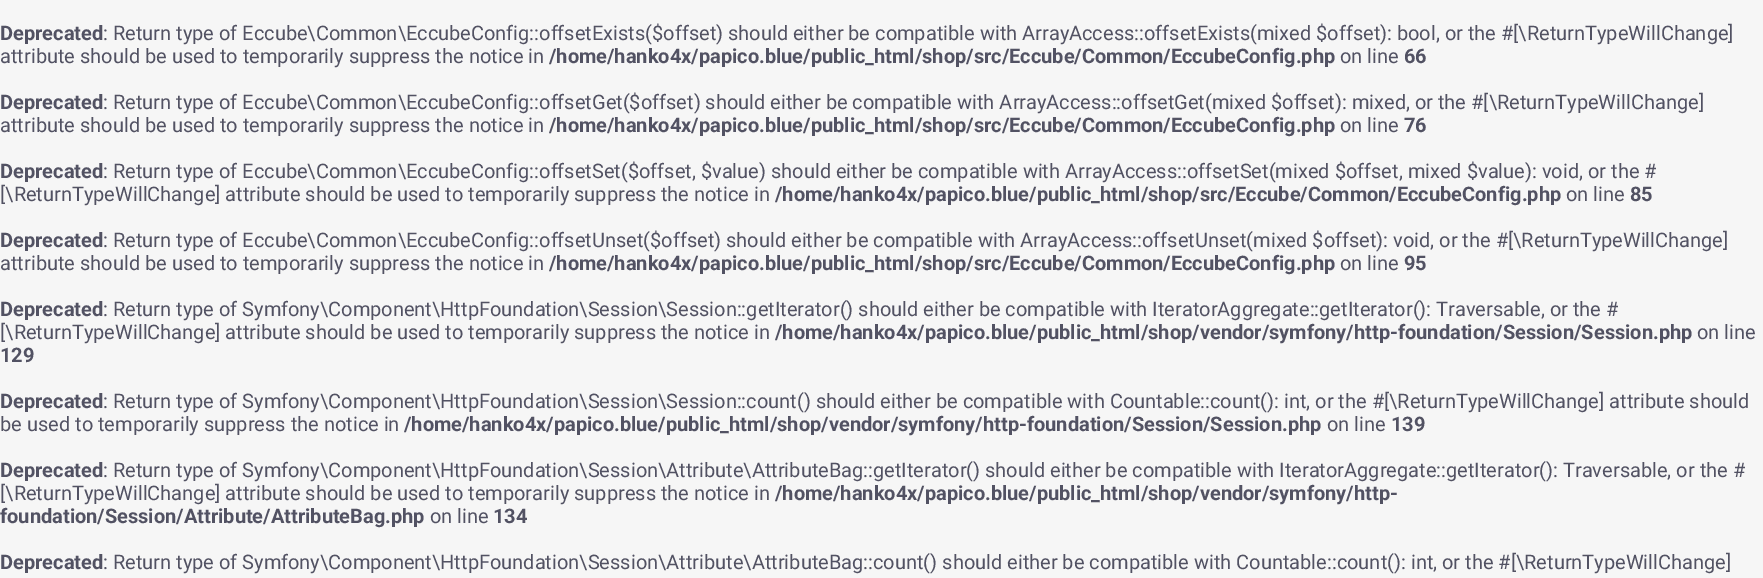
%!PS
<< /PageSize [1763 578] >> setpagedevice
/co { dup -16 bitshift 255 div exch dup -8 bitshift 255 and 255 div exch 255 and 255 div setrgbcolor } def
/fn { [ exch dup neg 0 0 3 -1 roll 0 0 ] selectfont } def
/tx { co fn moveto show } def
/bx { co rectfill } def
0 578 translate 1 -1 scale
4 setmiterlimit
0 0 1763 578 16#F6F6F6 bx
(Deprecated) 0 40 /Roboto-Bold 20 16#525263 tx
(: Return type of Eccube\\Common\\EccubeConfig::offsetExists\($offset\) should either be compatible with ArrayAccess::offsetExists\(mixed $offset\): bool, or the #[\\ReturnTypeWillChange]) 103 40 /Roboto-Regular 20 16#525263 tx
(attribute should be used to temporarily suppress the notice in) 0 63 /Roboto-Regular 20 16#525263 tx
(/home/hanko4x/papico.blue/public_html/shop/src/Eccube/Common/EccubeConfig.php) 549 63 /Roboto-Bold 20 16#525263 tx
(on line) 1340 63 /Roboto-Regular 20 16#525263 tx
(66) 1404 63 /Roboto-Bold 20 16#525263 tx
(Deprecated) 0 109 /Roboto-Bold 20 16#525263 tx
(: Return type of Eccube\\Common\\EccubeConfig::offsetGet\($offset\) should either be compatible with ArrayAccess::offsetGet\(mixed $offset\): mixed, or the #[\\ReturnTypeWillChange]) 103 109 /Roboto-Regular 20 16#525263 tx
(attribute should be used to temporarily suppress the notice in) 0 132 /Roboto-Regular 20 16#525263 tx
(/home/hanko4x/papico.blue/public_html/shop/src/Eccube/Common/EccubeConfig.php) 549 132 /Roboto-Bold 20 16#525263 tx
(on line) 1340 132 /Roboto-Regular 20 16#525263 tx
(76) 1404 132 /Roboto-Bold 20 16#525263 tx
(Deprecated) 0 178 /Roboto-Bold 20 16#525263 tx
(: Return type of Eccube\\Common\\EccubeConfig::offsetSet\($offset, $value\) should either be compatible with ArrayAccess::offsetSet\(mixed $offset, mixed $value\): void, or the #) 103 178 /Roboto-Regular 20 16#525263 tx
([\\ReturnTypeWillChange] attribute should be used to temporarily suppress the notice in) 0 201 /Roboto-Regular 20 16#525263 tx
(/home/hanko4x/papico.blue/public_html/shop/src/Eccube/Common/EccubeConfig.php) 775 201 /Roboto-Bold 20 16#525263 tx
(on line) 1566 201 /Roboto-Regular 20 16#525263 tx
(85) 1630 201 /Roboto-Bold 20 16#525263 tx
(Deprecated) 0 247 /Roboto-Bold 20 16#525263 tx
(: Return type of Eccube\\Common\\EccubeConfig::offsetUnset\($offset\) should either be compatible with ArrayAccess::offsetUnset\(mixed $offset\): void, or the #[\\ReturnTypeWillChange]) 103 247 /Roboto-Regular 20 16#525263 tx
(attribute should be used to temporarily suppress the notice in) 0 270 /Roboto-Regular 20 16#525263 tx
(/home/hanko4x/papico.blue/public_html/shop/src/Eccube/Common/EccubeConfig.php) 549 270 /Roboto-Bold 20 16#525263 tx
(on line) 1340 270 /Roboto-Regular 20 16#525263 tx
(95) 1404 270 /Roboto-Bold 20 16#525263 tx
(Deprecated) 0 316 /Roboto-Bold 20 16#525263 tx
(: Return type of Symfony\\Component\\HttpFoundation\\Session\\Session::getIterator\(\) should either be compatible with IteratorAggregate::getIterator\(\): Traversable, or the #) 103 316 /Roboto-Regular 20 16#525263 tx
([\\ReturnTypeWillChange] attribute should be used to temporarily suppress the notice in) 0 339 /Roboto-Regular 20 16#525263 tx
(/home/hanko4x/papico.blue/public_html/shop/vendor/symfony/http-foundation/Session/Session.php) 775 339 /Roboto-Bold 20 16#525263 tx
(on line) 1697 339 /Roboto-Regular 20 16#525263 tx
(129) 0 362 /Roboto-Bold 20 16#525263 tx
(Deprecated) 0 408 /Roboto-Bold 20 16#525263 tx
(: Return type of Symfony\\Component\\HttpFoundation\\Session\\Session::count\(\) should either be compatible with Countable::count\(\): int, or the #[\\ReturnTypeWillChange] attribute should) 103 408 /Roboto-Regular 20 16#525263 tx
(be used to temporarily suppress the notice in) 0 431 /Roboto-Regular 20 16#525263 tx
(/home/hanko4x/papico.blue/public_html/shop/vendor/symfony/http-foundation/Session/Session.php) 404 431 /Roboto-Bold 20 16#525263 tx
(on line) 1327 431 /Roboto-Regular 20 16#525263 tx
(139) 1391 431 /Roboto-Bold 20 16#525263 tx
(Deprecated) 0 477 /Roboto-Bold 20 16#525263 tx
(: Return type of Symfony\\Component\\HttpFoundation\\Session\\Attribute\\AttributeBag::getIterator\(\) should either be compatible with IteratorAggregate::getIterator\(\): Traversable, or the #) 103 477 /Roboto-Regular 20 16#525263 tx
([\\ReturnTypeWillChange] attribute should be used to temporarily suppress the notice in) 0 500 /Roboto-Regular 20 16#525263 tx
(/home/hanko4x/papico.blue/public_html/shop/vendor/symfony/http-) 775 500 /Roboto-Bold 20 16#525263 tx
(foundation/Session/Attribute/AttributeBag.php) 0 523 /Roboto-Bold 20 16#525263 tx
(on line) 430 523 /Roboto-Regular 20 16#525263 tx
(134) 493 523 /Roboto-Bold 20 16#525263 tx
(Deprecated) 0 569 /Roboto-Bold 20 16#525263 tx
(: Return type of Symfony\\Component\\HttpFoundation\\Session\\Attribute\\AttributeBag::count\(\) should either be compatible with Countable::count\(\): int, or the #[\\ReturnTypeWillChange]) 103 569 /Roboto-Regular 20 16#525263 tx
showpage
